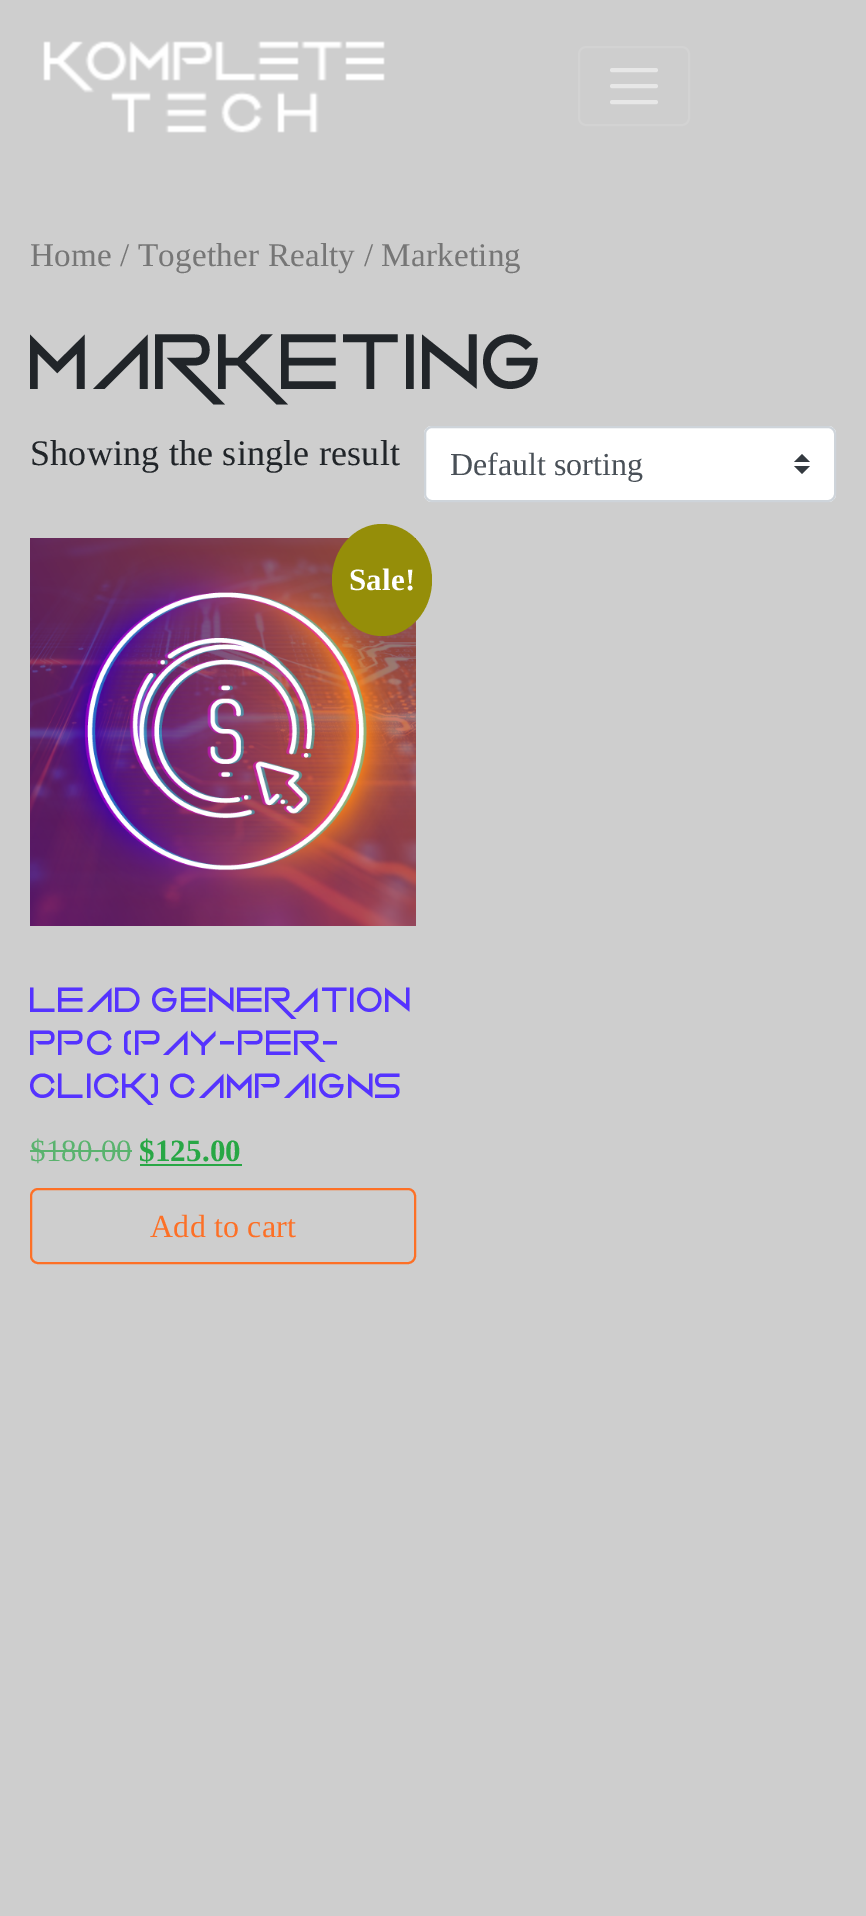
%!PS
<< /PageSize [866 1916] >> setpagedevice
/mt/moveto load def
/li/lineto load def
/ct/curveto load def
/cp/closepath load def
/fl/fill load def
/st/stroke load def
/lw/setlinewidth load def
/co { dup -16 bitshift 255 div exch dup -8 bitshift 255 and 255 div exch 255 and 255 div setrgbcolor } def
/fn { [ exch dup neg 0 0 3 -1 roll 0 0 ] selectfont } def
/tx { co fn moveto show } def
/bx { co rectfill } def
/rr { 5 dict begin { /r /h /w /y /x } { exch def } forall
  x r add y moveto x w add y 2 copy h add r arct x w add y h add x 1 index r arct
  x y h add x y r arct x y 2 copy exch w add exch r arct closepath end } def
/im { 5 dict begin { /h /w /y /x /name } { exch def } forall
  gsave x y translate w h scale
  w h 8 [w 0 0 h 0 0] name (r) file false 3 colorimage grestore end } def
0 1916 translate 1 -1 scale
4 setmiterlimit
0 0 866 1916 16#CECECE bx
(media/1.raw) 43 41 342 92 im
16#D3D3D3 co
2 lw
579 47 110 78 7 rr st
16#E7E7E7 co
4 lw
1 setlinecap
612 70 mt 656 70 li 612 86 mt 656 86 li 612 102 mt 656 102 li st
16#FFFFFF co
424 426 412 76 8 rr fl
16#343A40 co
802 454 mt 794 462 li 810 462 li cp 802 474 mt 794 466 li 810 466 li cp fl
16#CED4DA co
2 lw
0 setlinecap
425 427 410 74 7 rr st
(media/2.raw) 30 538 386 388 im
16#958E09 co
382 524 mt 409.5 524 432 549 432 580 ct 432 611 409.5 636 382 636 ct 354.5 636 332 611 332 580 ct 332 549 354.5 524 382 524 ct cp fl
30 1150 102 2 16#5AB36E bx
140 1164 102 2 16#28A745 bx
16#FD7026 co
31 1189 384 74 7 rr st
/LiberationSerif-Regular 33.1 fn
16#767676 co
30 266 mt .2 0 (Home / Together Realty / Marketing) ashow
/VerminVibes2-Regular 80 fn
16#212529 co
30 389 mt .2 0 (Marketing) ashow
/LiberationSerif-Regular 36 fn
30 465 mt .2 0 (Showing the single result) ashow
(Default sorting) 450 475 /LiberationSerif-Regular 32 16#495057 tx
/LiberationSerif-Bold 31 fn
16#FFFFFF co
349 590 mt .2 0 (Sale!) ashow
/VerminVibes2-Regular 36 fn
16#5533FF co
30 1012 mt .2 0 (Lead Generation) ashow
30 1055 mt .2 0 (PPC \(Pay-Per-) ashow
30 1098 mt .2 0 (Click\) Campaigns) ashow
/LiberationSerif-Regular 31 fn
16#5AB36E co
30 1161 mt .2 0 ($180.00) ashow
/LiberationSerif-Bold 31 fn
16#28A745 co
139 1161 mt .2 0 ($125.00) ashow
/LiberationSerif-Regular 32 fn
16#FD7026 co
150 1237 mt .2 0 (Add to cart) ashow
showpage
